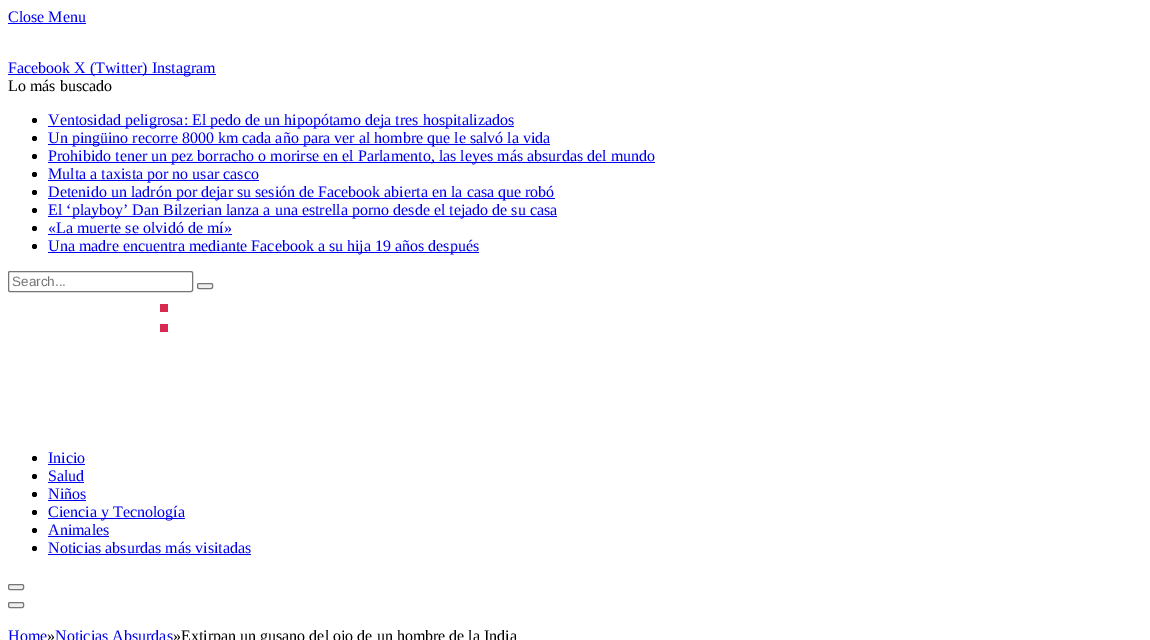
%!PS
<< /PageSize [1150 640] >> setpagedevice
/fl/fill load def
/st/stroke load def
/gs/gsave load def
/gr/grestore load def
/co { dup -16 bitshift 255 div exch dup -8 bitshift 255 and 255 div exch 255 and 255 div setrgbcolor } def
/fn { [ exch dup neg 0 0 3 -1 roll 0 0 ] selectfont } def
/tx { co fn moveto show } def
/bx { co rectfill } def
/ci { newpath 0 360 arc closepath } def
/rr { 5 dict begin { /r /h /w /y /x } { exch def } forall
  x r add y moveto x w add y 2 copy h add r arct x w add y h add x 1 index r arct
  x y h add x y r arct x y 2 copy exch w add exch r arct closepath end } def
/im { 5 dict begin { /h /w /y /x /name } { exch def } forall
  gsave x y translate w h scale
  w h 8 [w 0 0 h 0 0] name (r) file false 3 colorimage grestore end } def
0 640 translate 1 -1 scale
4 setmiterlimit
0 0 1150 640 16#FFFFFF bx
8 23 78 1 16#0000EE bx
8 74 208 1 16#0000EE bx
16#000000 co
34.5 120.5 2.5 ci fl
48 126 466 1 16#0000EE bx
16#000000 co
34.5 138.5 2.5 ci fl
48 144 502 1 16#0000EE bx
16#000000 co
34.5 156.5 2.5 ci fl
48 162 607 1 16#0000EE bx
16#000000 co
34.5 174.5 2.5 ci fl
48 180 211 1 16#0000EE bx
16#000000 co
34.5 192.5 2.5 ci fl
48 198 507 1 16#0000EE bx
16#000000 co
34.5 210.5 2.5 ci fl
48 216 509 1 16#0000EE bx
16#000000 co
34.5 228.5 2.5 ci fl
48 234 184 1 16#0000EE bx
16#000000 co
34.5 246.5 2.5 ci fl
48 252 431 1 16#0000EE bx
16#767676 co
8.5 271.5 184 20 1.5 rr st
16#EFEFEF co
197.5 283.5 15 5 1.5 rr gs fl gr
16#767676 co
st
(media/1.raw) 160 304 8 28 im
16#000000 co
34.5 458.5 2.5 ci fl
48 464 37 1 16#0000EE bx
16#000000 co
34.5 476.5 2.5 ci fl
48 482 36 1 16#0000EE bx
16#000000 co
34.5 494.5 2.5 ci fl
48 500 38 1 16#0000EE bx
16#000000 co
34.5 512.5 2.5 ci fl
48 518 137 1 16#0000EE bx
16#000000 co
34.5 530.5 2.5 ci fl
48 536 61 1 16#0000EE bx
16#000000 co
34.5 548.5 2.5 ci fl
48 554 203 1 16#0000EE bx
16#EFEFEF co
8.5 584.5 15 5 1.5 rr gs fl gr
16#767676 co
st
16#EFEFEF co
8.5 602.5 15 5 1.5 rr gs fl gr
16#767676 co
st
(Close Menu) 8 22 /LiberationSerif-Regular 16 16#0000EE tx
(Facebook X \(Twitter\) Instagram) 8 73 /LiberationSerif-Regular 16 16#0000EE tx
(Lo más buscado) 8 91 /LiberationSerif-Regular 16 16#000000 tx
(Ventosidad peligrosa: El pedo de un hipopótamo deja tres hospitalizados) 48 125 /LiberationSerif-Regular 16 16#0000EE tx
(Un pingüino recorre 8000 km cada año para ver al hombre que le salvó la vida) 48 143 /LiberationSerif-Regular 16 16#0000EE tx
(Prohibido tener un pez borracho o morirse en el Parlamento, las leyes más absurdas del mundo) 48 161 /LiberationSerif-Regular 16 16#0000EE tx
(Multa a taxista por no usar casco) 48 179 /LiberationSerif-Regular 16 16#0000EE tx
(Detenido un ladrón por dejar su sesión de Facebook abierta en la casa que robó) 48 197 /LiberationSerif-Regular 16 16#0000EE tx
(El ‘playboy’ Dan Bilzerian lanza a una estrella porno desde el tejado de su casa) 48 215 /LiberationSerif-Regular 16 16#0000EE tx
(«La muerte se olvidó de mí») 48 233 /LiberationSerif-Regular 16 16#0000EE tx
(Una madre encuentra mediante Facebook a su hija 19 años después) 48 251 /LiberationSerif-Regular 16 16#0000EE tx
(Search...) 12 286 /LiberationSans-Regular 13.5 16#757575 tx
(Inicio) 48 463 /LiberationSerif-Regular 16 16#0000EE tx
(Salud) 48 481 /LiberationSerif-Regular 16 16#0000EE tx
(Niños) 48 499 /LiberationSerif-Regular 16 16#0000EE tx
(Ciencia y Tecnología) 48 517 /LiberationSerif-Regular 16 16#0000EE tx
(Animales) 48 535 /LiberationSerif-Regular 16 16#0000EE tx
(Noticias absurdas más visitadas) 48 553 /LiberationSerif-Regular 16 16#0000EE tx
(Home) 8 641 /LiberationSerif-Regular 16 16#0000EE tx
(») 47 641 /LiberationSerif-Regular 16 16#000000 tx
(Noticias Absurdas) 55 641 /LiberationSerif-Regular 16 16#0000EE tx
(»Extirpan un gusano del ojo de un hombre de la India) 173 641 /LiberationSerif-Regular 16 16#000000 tx
showpage
